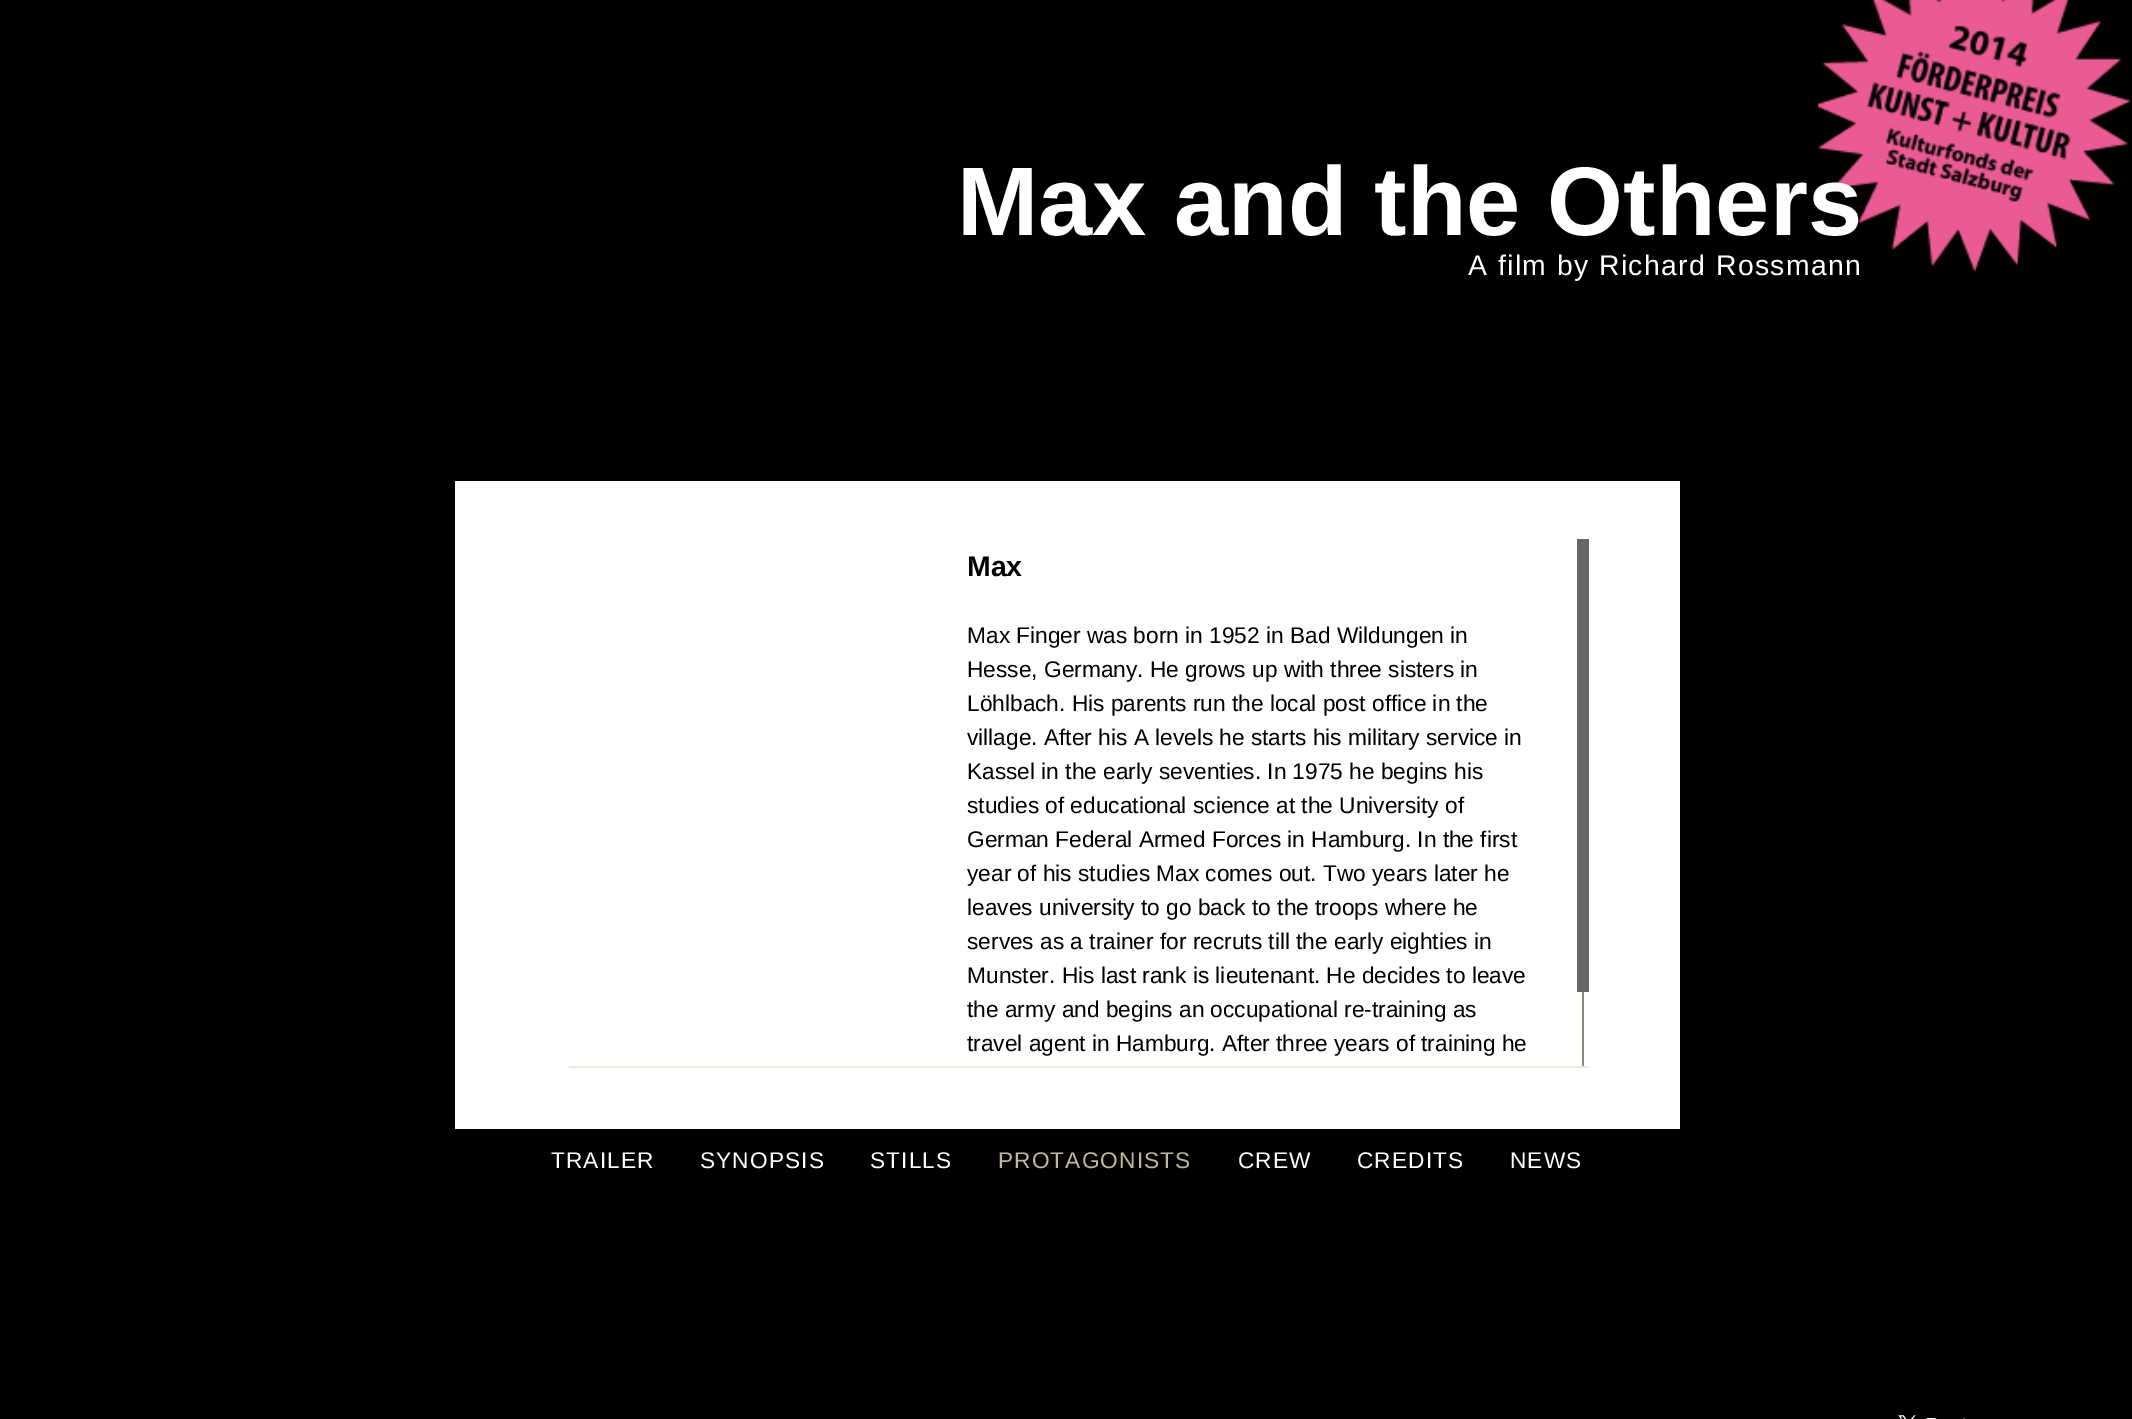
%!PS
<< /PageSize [2132 1419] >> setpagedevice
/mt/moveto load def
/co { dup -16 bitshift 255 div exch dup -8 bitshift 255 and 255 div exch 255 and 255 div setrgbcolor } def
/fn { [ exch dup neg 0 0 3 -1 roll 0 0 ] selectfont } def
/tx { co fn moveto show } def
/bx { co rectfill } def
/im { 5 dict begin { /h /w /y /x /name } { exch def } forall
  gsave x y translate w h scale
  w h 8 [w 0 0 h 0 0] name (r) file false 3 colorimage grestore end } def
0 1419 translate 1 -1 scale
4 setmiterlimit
0 0 2132 1419 16#000000 bx
(media/1.raw) 1818 0 313 272 im
455 481 1225 648 16#FFFFFF bx
569 1066 1020 2 16#EBE9E0 bx
1577 539 12 453 16#666666 bx
1582 992 2 74 16#8D887C bx
(media/2.raw) 1898 1415 67 4 im
(Max and the Others) 957 235 /LiberationSans-Bold 97.5 16#FFFFFF tx
/LiberationSans-Regular 28.4 fn
1468 275 mt 1.4 0 (A film by Richard Rossmann) ashow
(Max) 967 576 /LiberationSans-Bold 28.4 16#000000 tx
(Max Finger was born in 1952 in Bad Wildungen in) 967 643 /LiberationSans-Regular 22.7 16#000000 tx
(Hesse, Germany. He grows up with three sisters in) 967 677 /LiberationSans-Regular 22.7 16#000000 tx
(Löhlbach. His parents run the local post office in the) 967 711 /LiberationSans-Regular 22.7 16#000000 tx
(village. After his A levels he starts his military service in) 967 745 /LiberationSans-Regular 22.7 16#000000 tx
(Kassel in the early seventies. In 1975 he begins his) 967 779 /LiberationSans-Regular 22.7 16#000000 tx
(studies of educational science at the University of) 967 813 /LiberationSans-Regular 22.7 16#000000 tx
(German Federal Armed Forces in Hamburg. In the first) 967 847 /LiberationSans-Regular 22.7 16#000000 tx
(year of his studies Max comes out. Two years later he) 967 881 /LiberationSans-Regular 22.7 16#000000 tx
(leaves university to go back to the troops where he) 967 915 /LiberationSans-Regular 22.7 16#000000 tx
(serves as a trainer for recruts till the early eighties in) 967 949 /LiberationSans-Regular 22.7 16#000000 tx
(Munster. His last rank is lieutenant. He decides to leave) 967 983 /LiberationSans-Regular 22.7 16#000000 tx
(the army and begins an occupational re-training as) 967 1017 /LiberationSans-Regular 22.7 16#000000 tx
(travel agent in Hamburg. After three years of training he) 967 1051 /LiberationSans-Regular 22.7 16#000000 tx
16#FFFFFF co
551 1168 mt 1.1 0 (TRAILER) ashow
700 1168 mt 1.1 0 (SYNOPSIS) ashow
870 1168 mt 1.1 0 (STILLS) ashow
16#C0B89C co
998 1168 mt 1.1 0 (PROTAGONISTS) ashow
16#FFFFFF co
1238 1168 mt 1.1 0 (CREW) ashow
1357 1168 mt 1.1 0 (CREDITS) ashow
1510 1168 mt 1.1 0 (NEWS) ashow
showpage
